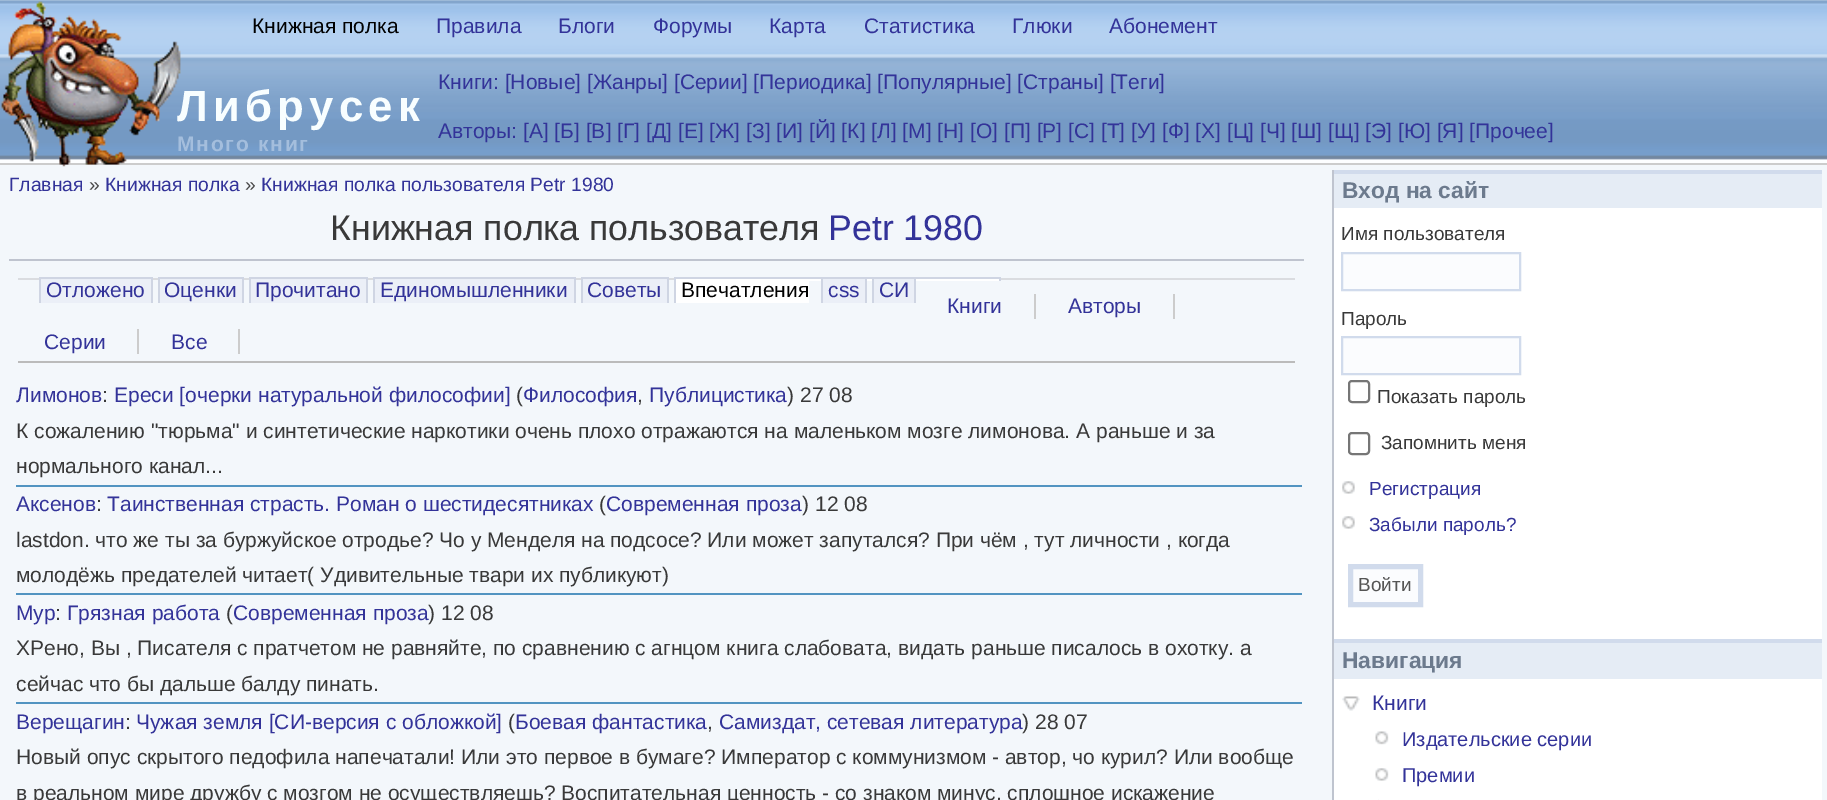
%!PS
<< /PageSize [1827 800] >> setpagedevice
/mt/moveto load def
/li/lineto load def
/cp/closepath load def
/fl/fill load def
/st/stroke load def
/gs/gsave load def
/gr/grestore load def
/lw/setlinewidth load def
/co { dup -16 bitshift 255 div exch dup -8 bitshift 255 and 255 div exch 255 and 255 div setrgbcolor } def
/fn { [ exch dup neg 0 0 3 -1 roll 0 0 ] selectfont } def
/tx { co fn moveto show } def
/bx { co rectfill } def
/rr { 5 dict begin { /r /h /w /y /x } { exch def } forall
  x r add y moveto x w add y 2 copy h add r arct x w add y h add x 1 index r arct
  x y h add x y r arct x y 2 copy exch w add exch r arct closepath end } def
/im { 5 dict begin { /h /w /y /x /name } { exch def } forall
  gsave x y translate w h scale
  w h 8 [w 0 0 h 0 0] name (r) file false 3 colorimage grestore end } def
0 800 translate 1 -1 scale
4 setmiterlimit
0 0 1827 800 16#FDFEFF bx
(media/1.raw) 0 0 1827 160 im
0 165 1827 635 16#F3F7FB bx
0 163 1827 2 16#CCCCCC bx
(media/2.raw) 1 1 180 166 im
9 259 1295 2 16#BFC4CF bx
18 278 1277 2 16#DADCE0 bx
41 279 110 24 16#EBEFF7 bx
39 277 113 2 16#CFD5E3 bx
151 277 2 26 16#CFD5E3 bx
39 277 2 26 16#CFD5E3 bx
160 279 82 24 16#EBEFF7 bx
158 277 85 2 16#CFD5E3 bx
242 277 2 26 16#CFD5E3 bx
158 277 2 26 16#CFD5E3 bx
251 279 115 24 16#EBEFF7 bx
249 277 119 2 16#CFD5E3 bx
366 277 2 26 16#CFD5E3 bx
249 277 2 26 16#CFD5E3 bx
375 279 199 24 16#EBEFF7 bx
373 277 203 2 16#CFD5E3 bx
574 277 2 26 16#CFD5E3 bx
373 277 2 26 16#CFD5E3 bx
583 279 84 24 16#EBEFF7 bx
581 277 88 2 16#CFD5E3 bx
667 277 2 26 16#CFD5E3 bx
581 277 2 26 16#CFD5E3 bx
676 279 133 24 16#FFFFFF bx
674 277 327 2 16#CFD5E3 bx
674 277 2 26 16#CFD5E3 bx
809 279 192 2 16#FFFFFF bx
999 277 2 4 16#CFD5E3 bx
823 279 42 24 16#EBEFF7 bx
865 277 2 26 16#CFD5E3 bx
821 277 2 26 16#CFD5E3 bx
874 279 40 24 16#EBEFF7 bx
914 277 2 26 16#CFD5E3 bx
872 277 2 26 16#CFD5E3 bx
18 361 1277 2 16#BBBBBB bx
1034 294 2 25 16#CCCCCC bx
1173 294 2 25 16#CCCCCC bx
137 329 2 25 16#CCCCCC bx
238 329 2 25 16#CCCCCC bx
16 485 1286 2 16#5294C1 bx
16 593 1286 2 16#5294C1 bx
16 702 1286 2 16#5294C1 bx
1334 208 488 592 16#FFFFFF bx
1332 170 2 630 16#BFC4CF bx
1334 174 488 34 16#E5ECF5 bx
1334 170 488 4 16#D1DBEC bx
16#FBFCFE co
1342 253 mt 1520 253 li 1520 290 li 1342 290 li cp gs fl gr
16#D1DBEC co
2 lw
st
16#FBFCFE co
1342 337 mt 1520 337 li 1520 374 li 1342 374 li cp gs fl gr
16#D1DBEC co
st
16#767676 co
1349 381 20 21 3 rr st
1349 433 20 21 3 rr st
(media/3.raw) 1342 481 13 13 im
(media/3.raw) 1342 516 13 13 im
16#FBFCFE co
1350.5 566.5 mt 1420.5 566.5 li 1420.5 604.5 li 1350.5 604.5 li cp gs fl gr
16#D1DBEC co
5 lw
st
1334 643 488 36 16#E5ECF5 bx
1334 639 488 4 16#D1DBEC bx
(media/4.raw) 1342 696 18 15 im
(media/5.raw) 1375 731 14 14 im
(media/6.raw) 1375 768 14 13 im
1378 799 1 1 16#FAFBFC bx
(Книжная полка) 252 33 /LiberationSans-Regular 21 16#000000 tx
(Правила) 436 33 /LiberationSans-Regular 21 16#333399 tx
(Блоги) 558 33 /LiberationSans-Regular 21 16#333399 tx
(Форумы) 653 33 /LiberationSans-Regular 21 16#333399 tx
(Карта) 769 33 /LiberationSans-Regular 21 16#333399 tx
(Статистика) 864 33 /LiberationSans-Regular 21 16#333399 tx
(Глюки) 1012 33 /LiberationSans-Regular 21 16#333399 tx
(Абонемент) 1109 33 /LiberationSans-Regular 21 16#333399 tx
(Книги: [Новые] [Жанры] [Серии] [Периодика] [Популярные] [Страны] [Теги]) 438 89 /LiberationSans-Regular 21 16#333399 tx
(Авторы: [А] [Б] [В] [Г] [Д] [Е] [Ж] [З] [И] [Й] [К] [Л] [М] [Н] [О] [П] [Р] [С] [Т] [У] [Ф] [Х] [Ц] [Ч] [Ш] [Щ] [Э] [Ю] [Я] [Прочее]) 438 138 /LiberationSans-Regular 21 16#333399 tx
/LiberationSans-Bold 43.75 fn
16#F8FEFF co
177 121 mt 5.25 0 (Либрусек) ashow
/LiberationSans-Bold 21 fn
16#A4BEDD co
177 151 mt 1.75 0 (Много книг) ashow
(Главная) 9 191 /LiberationSans-Regular 19.3 16#333399 tx
(») 89 191 /LiberationSans-Regular 19.3 16#494949 tx
(Книжная полка) 105 191 /LiberationSans-Regular 19.3 16#333399 tx
(») 245 191 /LiberationSans-Regular 19.3 16#494949 tx
(Книжная полка пользователя Petr 1980) 261 191 /LiberationSans-Regular 19.3 16#333399 tx
(Книжная полка пользователя) 330 240 /LiberationSans-Regular 35.75 16#393939 tx
(Petr 1980) 828 240 /LiberationSans-Regular 35.75 16#333399 tx
(Отложено) 46 297 /LiberationSans-Regular 21 16#333399 tx
(Оценки) 164 297 /LiberationSans-Regular 21 16#333399 tx
(Прочитано) 255 297 /LiberationSans-Regular 21 16#333399 tx
(Единомышленники) 380 297 /LiberationSans-Regular 21 16#333399 tx
(Советы) 587 297 /LiberationSans-Regular 21 16#333399 tx
(Впечатления) 681 297 /LiberationSans-Regular 21 16#000000 tx
(css) 828 297 /LiberationSans-Regular 21 16#333399 tx
(СИ) 879 297 /LiberationSans-Regular 21 16#333399 tx
(Книги) 947 313 /LiberationSans-Regular 21 16#333399 tx
(Авторы) 1068 313 /LiberationSans-Regular 21 16#333399 tx
(Серии) 44 349 /LiberationSans-Regular 21 16#333399 tx
(Все) 171 349 /LiberationSans-Regular 21 16#333399 tx
(Лимонов) 16 402 /LiberationSans-Regular 21 16#333399 tx
(:) 102 402 /LiberationSans-Regular 21 16#393939 tx
(Ереси [очерки натуральной философии]) 114 402 /LiberationSans-Regular 21 16#333399 tx
(\() 516 402 /LiberationSans-Regular 21 16#393939 tx
(Философия) 523 402 /LiberationSans-Regular 21 16#333399 tx
(,) 637 402 /LiberationSans-Regular 21 16#393939 tx
(Публицистика) 649 402 /LiberationSans-Regular 21 16#333399 tx
(\) 27 08) 787 402 /LiberationSans-Regular 21 16#393939 tx
(К сожалению "тюрьма" и синтетические наркотики очень плохо отражаются на маленьком мозге лимонова. А раньше и за) 16 438 /LiberationSans-Regular 21 16#393939 tx
(нормального канал...) 16 473 /LiberationSans-Regular 21 16#393939 tx
(Аксенов) 16 511 /LiberationSans-Regular 21 16#333399 tx
(:) 96 511 /LiberationSans-Regular 21 16#393939 tx
(Таинственная страсть. Роман о шестидесятниках) 107 511 /LiberationSans-Regular 21 16#333399 tx
(\() 599 511 /LiberationSans-Regular 21 16#393939 tx
(Современная проза) 606 511 /LiberationSans-Regular 21 16#333399 tx
(\) 12 08) 802 511 /LiberationSans-Regular 21 16#393939 tx
(lastdon. что же ты за буржуйское отродье? Чо у Менделя на подсосе? Или может запутался? При чём , тут личности , когда) 16 547 /LiberationSans-Regular 21 16#393939 tx
(молодёжь предателей читает\( Удивительные твари их публикуют\)) 16 582 /LiberationSans-Regular 21 16#393939 tx
(Мур) 16 620 /LiberationSans-Regular 21 16#333399 tx
(:) 55 620 /LiberationSans-Regular 21 16#393939 tx
(Грязная работа) 67 620 /LiberationSans-Regular 21 16#333399 tx
(\() 226 620 /LiberationSans-Regular 21 16#393939 tx
(Современная проза) 233 620 /LiberationSans-Regular 21 16#333399 tx
(\) 12 08) 428 620 /LiberationSans-Regular 21 16#393939 tx
(ХРено, Вы , Писателя с пратчетом не равняйте, по сравнению с агнцом книга слабовата, видать раньше писалось в охотку. а) 16 655 /LiberationSans-Regular 21 16#393939 tx
(сейчас что бы дальше балду пинать.) 16 691 /LiberationSans-Regular 21 16#393939 tx
(Верещагин) 16 729 /LiberationSans-Regular 21 16#333399 tx
(:) 125 729 /LiberationSans-Regular 21 16#393939 tx
(Чужая земля [СИ-версия с обложкой]) 136 729 /LiberationSans-Regular 21 16#333399 tx
(\() 508 729 /LiberationSans-Regular 21 16#393939 tx
(Боевая фантастика) 515 729 /LiberationSans-Regular 21 16#333399 tx
(,) 707 729 /LiberationSans-Regular 21 16#393939 tx
(Самиздат, сетевая литература) 719 729 /LiberationSans-Regular 21 16#333399 tx
(\) 28 07) 1022 729 /LiberationSans-Regular 21 16#393939 tx
(Новый опус скрытого педофила напечатали! Или это первое в бумаге? Император с коммунизмом - автор, чо курил? Или вообще) 16 764 /LiberationSans-Regular 21 16#393939 tx
(в реальном мире дружбу с мозгом не осуществляешь? Воспитательная ценность - со знаком минус, сплошное искажение) 16 800 /LiberationSans-Regular 21 16#393939 tx
(Вход на сайт) 1342 198 /LiberationSans-Bold 22.75 16#6C7A8D tx
(Имя пользователя) 1341 240 /LiberationSans-Regular 19 16#393939 tx
(Пароль) 1341 325 /LiberationSans-Regular 19 16#393939 tx
(Показать пароль) 1377 403 /LiberationSans-Regular 19 16#393939 tx
(Запомнить меня) 1381 449 /LiberationSans-Regular 19 16#393939 tx
(Регистрация) 1369 495 /LiberationSans-Regular 19 16#333399 tx
(Забыли пароль?) 1369 531 /LiberationSans-Regular 19 16#333399 tx
(Войти) 1358 591 /LiberationSans-Regular 19 16#555555 tx
(Навигация) 1342 668 /LiberationSans-Bold 22.75 16#6C7A8D tx
(Книги) 1372 710 /LiberationSans-Regular 21 16#333399 tx
(Издательские серии) 1402 746 /LiberationSans-Regular 20 16#333399 tx
(Премии) 1402 782 /LiberationSans-Regular 20 16#333399 tx
showpage
